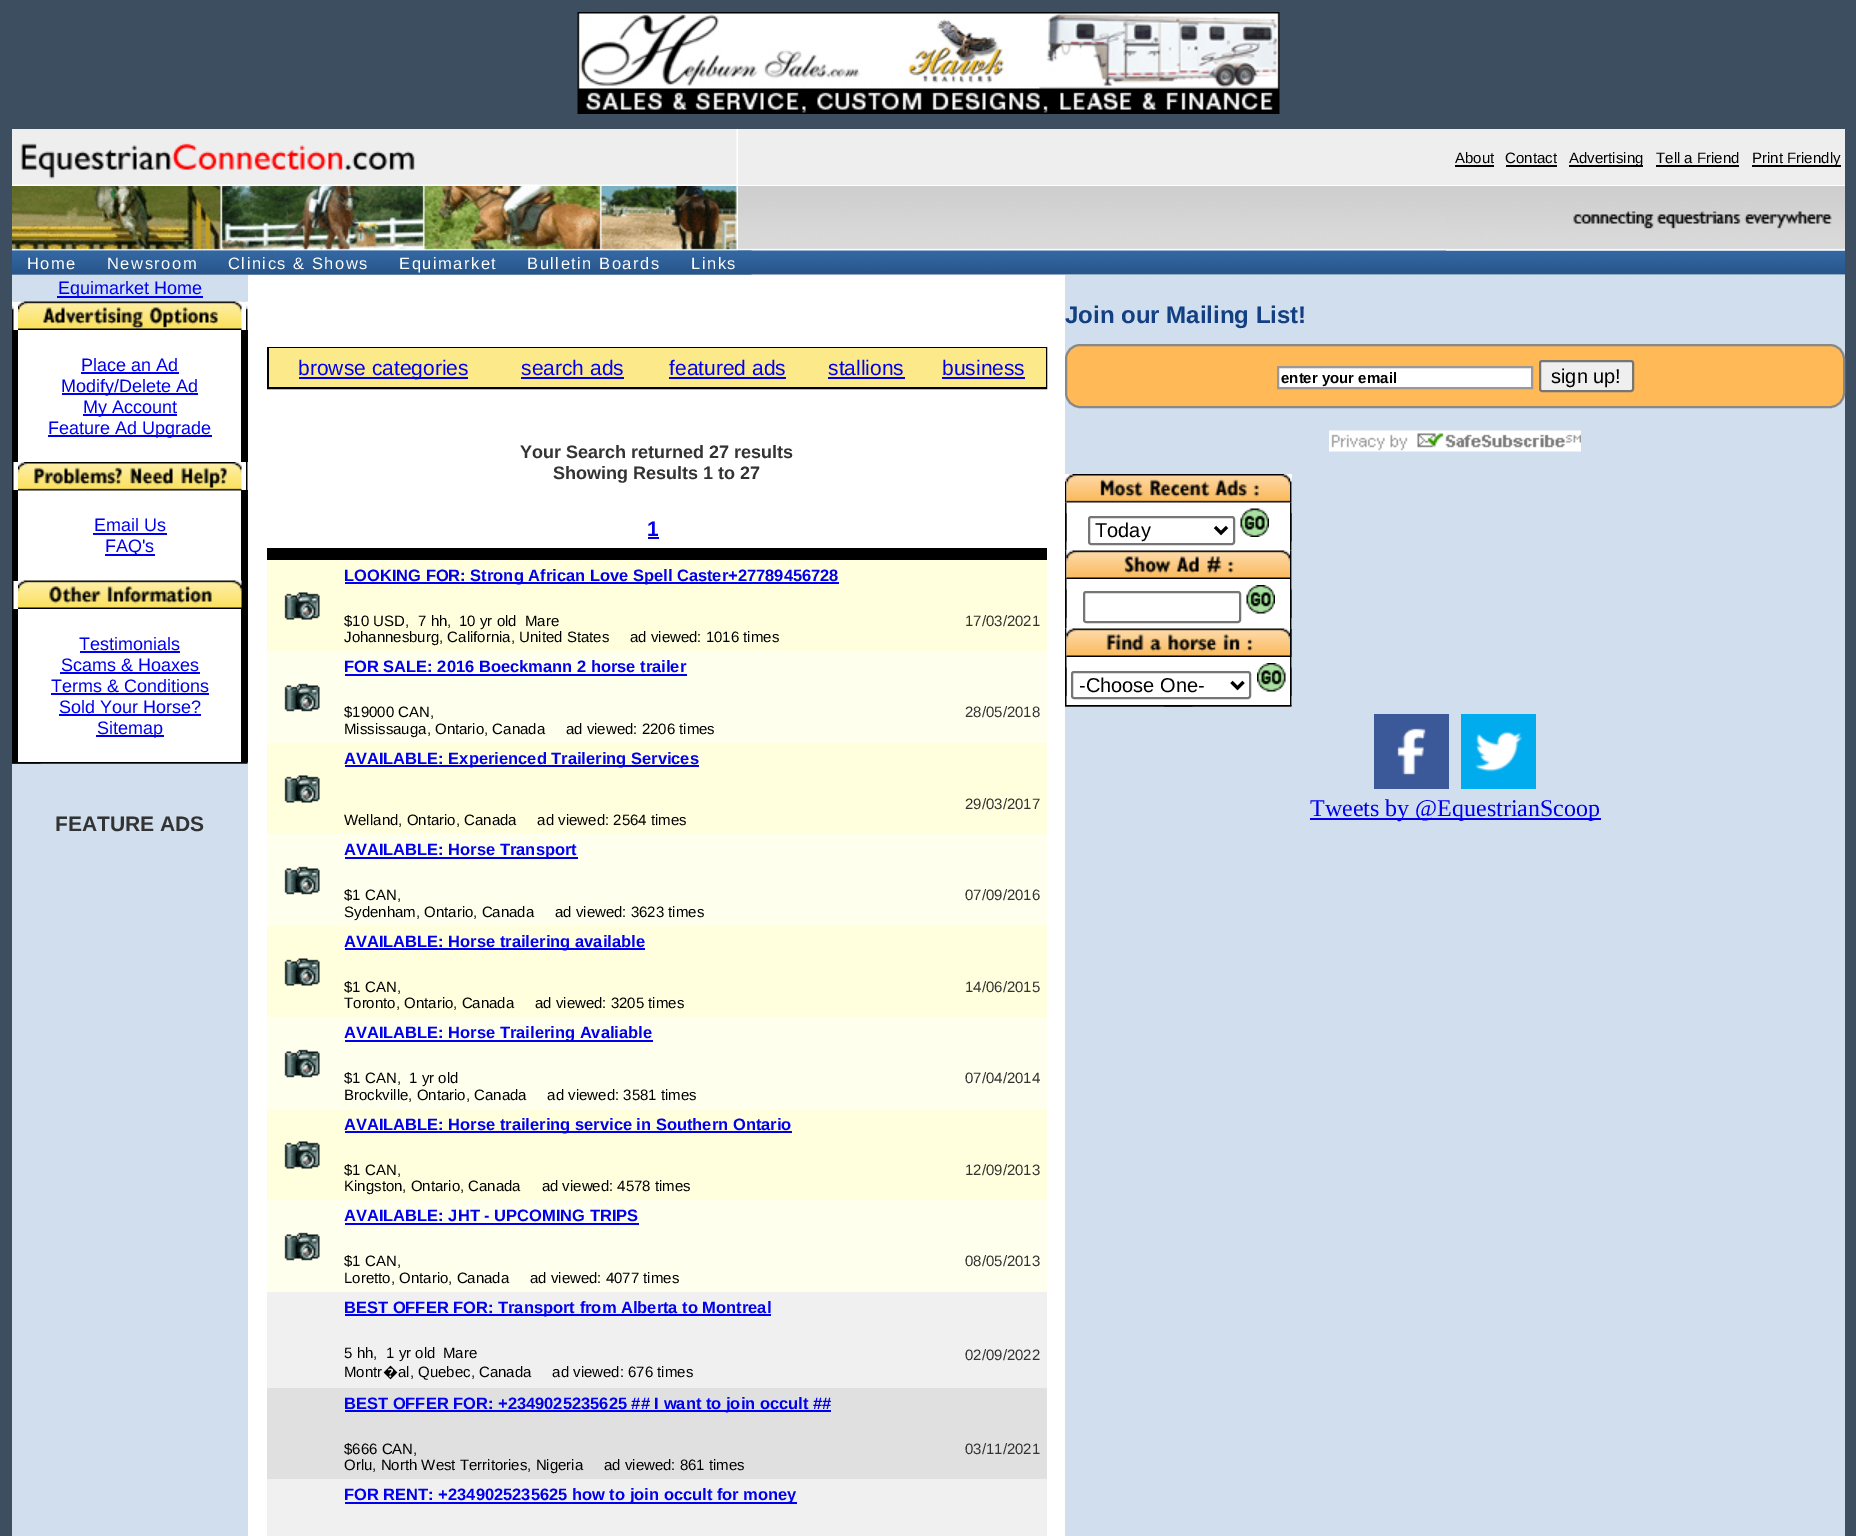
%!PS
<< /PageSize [1856 1536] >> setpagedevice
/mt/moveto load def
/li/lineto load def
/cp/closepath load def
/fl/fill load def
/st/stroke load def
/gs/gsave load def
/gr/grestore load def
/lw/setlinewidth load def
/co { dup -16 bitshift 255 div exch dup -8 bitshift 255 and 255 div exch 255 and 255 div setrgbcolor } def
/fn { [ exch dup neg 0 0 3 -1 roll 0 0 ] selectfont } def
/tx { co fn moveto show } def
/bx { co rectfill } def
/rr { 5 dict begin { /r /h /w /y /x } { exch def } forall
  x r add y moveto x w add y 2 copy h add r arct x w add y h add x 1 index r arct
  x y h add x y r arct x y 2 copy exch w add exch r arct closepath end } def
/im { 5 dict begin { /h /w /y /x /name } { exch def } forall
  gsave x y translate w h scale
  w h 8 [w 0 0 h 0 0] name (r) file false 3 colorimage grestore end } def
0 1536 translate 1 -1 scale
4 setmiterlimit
0 0 1856 1536 16#3E4E61 bx
(media/1.raw) 577 12 703 102 im
12 129 1833 1407 16#FFFFFF bx
(media/2.raw) 12 129 725 56 im
738 129 1107 56 16#EEEEEE bx
1455 165 39 2 16#000000 bx
1506 165 51 2 16#000000 bx
1569 165 74 2 16#000000 bx
1656 165 83 2 16#000000 bx
1752 165 89 2 16#000000 bx
(media/6.raw) 12 250 1833 25 im
(media/3.raw) 12 186 726 65 im
(media/4.raw) 738 186 1107 64 im
(media/5.raw) 1446 211 399 40 im
(media/7.raw) 12 250 80 25 im
(media/8.raw) 91 250 122 25 im
(media/9.raw) 213 250 171 25 im
(media/10.raw) 384 250 128 25 im
(media/11.raw) 511 250 164 25 im
(media/12.raw) 675 250 77 25 im
12 275 236 1261 16#D0DEED bx
57 296 146 2 16#0000EE bx
13 302 235 28 16#FFFFFF bx
(media/13.raw) 12 301 2 29 im
(media/14.raw) 18 301 224 29 im
(media/13.raw) 246 301 2 29 im
18 330 223 132 16#FFFFFF bx
12 330 6 132 16#000000 bx
81 372 98 2 16#0000EE bx
62 393 136 2 16#0000EE bx
83 414 94 2 16#0000EE bx
48 435 164 2 16#0000EE bx
241 330 7 132 16#000000 bx
13 462 235 29 16#FFFFFF bx
(media/15.raw) 12 462 2 28 im
241 490 7 272 16#000000 bx
(media/16.raw) 18 462 224 29 im
(media/15.raw) 246 462 2 28 im
18 491 223 90 16#FFFFFF bx
12 490 6 91 16#000000 bx
93 533 74 2 16#0000EE bx
105 554 50 2 16#0000EE bx
13 581 5 28 16#FFFFFF bx
(media/15.raw) 12 581 2 28 im
(media/17.raw) 18 580 224 29 im
18 609 223 153 16#FFFFFF bx
12 609 6 153 16#000000 bx
80 651 100 2 16#0000EE bx
60 672 140 2 16#0000EE bx
51 693 158 2 16#0000EE bx
59 714 142 2 16#0000EE bx
96 735 68 2 16#0000EE bx
12 762 236 2 16#FFFFFF bx
(media/18.raw) 12 762 236 2 im
(media/19.raw) 12 763 29 1 im
16#000000 co
2 lw
268 348 778 40 rectstroke
269 348 777 39 16#FCE989 bx
299 377 169 2 16#0000EE bx
521 377 103 2 16#0000EE bx
669 377 117 2 16#0000EE bx
828 377 77 2 16#0000EE bx
942 377 83 2 16#0000EE bx
648 537 11 2 16#0000EE bx
267 548 780 12 16#000000 bx
267 560 780 91 16#FFFFDD bx
345 582 494 2 16#0000EE bx
(media/20.raw) 284 592 36 28 im
267 651 780 92 16#FFFFEE bx
345 674 342 2 16#0000EE bx
(media/21.raw) 284 683 36 29 im
267 743 780 91 16#FFFFDD bx
345 765 354 2 16#0000EE bx
(media/20.raw) 284 775 36 28 im
267 834 780 92 16#FFFFEE bx
345 857 233 2 16#0000EE bx
(media/21.raw) 284 866 36 29 im
267 926 780 91 16#FFFFDD bx
345 948 300 2 16#0000EE bx
(media/20.raw) 284 958 36 28 im
267 1017 780 92 16#FFFFEE bx
345 1040 308 2 16#0000EE bx
(media/21.raw) 284 1049 36 29 im
267 1109 780 91 16#FFFFDD bx
345 1131 447 2 16#0000EE bx
(media/20.raw) 284 1141 36 28 im
267 1200 780 92 16#FFFFEE bx
345 1223 294 2 16#0000EE bx
(media/21.raw) 284 1232 36 29 im
267 1292 780 96 16#F0F0F0 bx
345 1314 426 2 16#0000EE bx
267 1388 780 91 16#E0E0E0 bx
345 1410 486 2 16#0000EE bx
267 1479 780 57 16#F0F0F0 bx
345 1502 452 2 16#0000EE bx
1065 275 780 1261 16#D0DEED bx
16#FFB957 co
1066 345 778 62 14 rr gs fl gr
16#888888 co
st
16#FFFFFF co
1278 367 mt 1532 367 li 1532 388 li 1278 388 li cp gs fl gr
16#999999 co
st
16#EFEFEF co
1540 361 93 30 2 rr gs fl gr
16#767676 co
st
(media/22.raw) 1329 430 252 22 im
1065 474 227 233 16#FFFFFF bx
(media/25.raw) 1065 502 2 49 im
(media/24.raw) 1065 478 2 25 im
(media/23.raw) 1066 474 224 29 im
(media/25.raw) 1290 502 2 49 im
(media/24.raw) 1290 478 2 25 im
(media/26.raw) 1066 513 1 29 im
16#767676 co
1089 517 145 27 2 rr st
16#000000 co
3 lw
1215 527 mt 1221 533 li 1227 527 li st
(media/27.raw) 1240 508 29 29 im
(media/26.raw) 1291 513 1 29 im
(media/28.raw) 1065 550 2 29 im
(media/29.raw) 1066 550 224 29 im
(media/28.raw) 1290 550 2 29 im
(media/30.raw) 1065 579 2 50 im
(media/31.raw) 1066 589 1 29 im
16#767676 co
2 lw
1084 592 156 30 2 rr st
(media/32.raw) 1246 585 29 29 im
(media/30.raw) 1290 579 2 50 im
(media/31.raw) 1291 589 1 29 im
(media/28.raw) 1065 628 2 29 im
(media/33.raw) 1066 628 224 29 im
(media/28.raw) 1290 628 2 29 im
(media/34.raw) 1290 628 2 29 im
(media/35.raw) 1065 657 2 48 im
(media/31.raw) 1066 667 1 29 im
1072 672 178 26 2 rr st
16#000000 co
3 lw
1231.5 682 mt 1237.5 688 li 1243.5 682 li st
(media/36.raw) 1257 663 29 29 im
(media/35.raw) 1290 657 2 48 im
(media/31.raw) 1291 667 1 29 im
(media/37.raw) 1065 705 227 2 im
(media/19.raw) 1164 706 29 1 im
(media/38.raw) 1374 714 75 75 im
(media/39.raw) 1461 714 75 75 im
1310 818 291 2 16#0000EE bx
(About) 1455 163 /LiberationSans-Regular 15 16#000000 tx
(Contact) 1505 163 /LiberationSans-Regular 15 16#000000 tx
(Advertising) 1569 163 /LiberationSans-Regular 15 16#000000 tx
(Tell a Friend) 1656 163 /LiberationSans-Regular 15 16#000000 tx
(Print Friendly) 1752 163 /LiberationSans-Regular 15 16#000000 tx
/LiberationSans-Regular 16.5 fn
16#FFFFFF co
27 269 mt 1.5 0 (Home) ashow
107 269 mt 1.5 0 (Newsroom) ashow
228 269 mt 1.5 0 (Clinics & Shows) ashow
399 269 mt 1.5 0 (Equimarket) ashow
527 269 mt 1.5 0 (Bulletin Boards) ashow
691 269 mt 1.5 0 (Links) ashow
(Equimarket Home) 58 294 /LiberationSans-Regular 18 16#0000EE tx
(Place an Ad) 81 371 /LiberationSans-Regular 18 16#0000EE tx
(Modify/Delete Ad) 61 392 /LiberationSans-Regular 18 16#0000EE tx
(My Account) 83 413 /LiberationSans-Regular 18 16#0000EE tx
(Feature Ad Upgrade) 48 434 /LiberationSans-Regular 18 16#0000EE tx
(Email Us) 94 531 /LiberationSans-Regular 18 16#0000EE tx
(FAQ's) 105 552 /LiberationSans-Regular 18 16#0000EE tx
(Testimonials) 79 650 /LiberationSans-Regular 18 16#0000EE tx
(Scams & Hoaxes) 61 671 /LiberationSans-Regular 18 16#0000EE tx
(Terms & Conditions) 51 692 /LiberationSans-Regular 18 16#0000EE tx
(Sold Your Horse?) 59 713 /LiberationSans-Regular 18 16#0000EE tx
(Sitemap) 97 734 /LiberationSans-Regular 18 16#0000EE tx
(FEATURE ADS) 55 831 /LiberationSans-Bold 21 16#333333 tx
(browse categories) 298 375 /LiberationSans-Regular 21 16#0000EE tx
(search ads) 521 375 /LiberationSans-Regular 21 16#0000EE tx
(featured ads) 669 375 /LiberationSans-Regular 21 16#0000EE tx
(stallions) 828 375 /LiberationSans-Regular 21 16#0000EE tx
(business) 942 375 /LiberationSans-Regular 21 16#0000EE tx
(Your Search returned 27 results) 520 458 /LiberationSans-Bold 18 16#333333 tx
(Showing Results 1 to 27) 553 479 /LiberationSans-Bold 18 16#333333 tx
(1) 647 536 /LiberationSans-Bold 21 16#0000EE tx
(LOOKING FOR: Strong African Love Spell Caster+27789456728) 344 581 /LiberationSans-Bold 16.5 16#0000EE tx
($10 USD,) 344 626 /LiberationSans-Regular 15 16#000000 tx
(7 hh,) 418 626 /LiberationSans-Regular 15 16#000000 tx
(10 yr old) 459 626 /LiberationSans-Regular 15 16#000000 tx
(Mare) 525 626 /LiberationSans-Regular 15 16#000000 tx
(Johannesburg, California, United States     ad viewed: 1016 times) 344 642 /LiberationSans-Regular 15 16#000000 tx
(17/03/2021) 965 626 /LiberationSans-Regular 15 16#333333 tx
(FOR SALE: 2016 Boeckmann 2 horse trailer) 344 672 /LiberationSans-Bold 16.5 16#0000EE tx
($19000 CAN,) 344 717 /LiberationSans-Regular 15 16#000000 tx
(Mississauga, Ontario, Canada     ad viewed: 2206 times) 344 734 /LiberationSans-Regular 15 16#000000 tx
(28/05/2018) 965 717 /LiberationSans-Regular 15 16#333333 tx
(AVAILABLE: Experienced Trailering Services) 344 764 /LiberationSans-Bold 16.5 16#0000EE tx
(29/03/2017) 965 809 /LiberationSans-Regular 15 16#333333 tx
(Welland, Ontario, Canada     ad viewed: 2564 times) 344 825 /LiberationSans-Regular 15 16#000000 tx
(AVAILABLE: Horse Transport) 344 855 /LiberationSans-Bold 16.5 16#0000EE tx
($1 CAN,) 344 900 /LiberationSans-Regular 15 16#000000 tx
(Sydenham, Ontario, Canada     ad viewed: 3623 times) 344 917 /LiberationSans-Regular 15 16#000000 tx
(07/09/2016) 965 900 /LiberationSans-Regular 15 16#333333 tx
(AVAILABLE: Horse trailering available) 344 947 /LiberationSans-Bold 16.5 16#0000EE tx
($1 CAN,) 344 992 /LiberationSans-Regular 15 16#000000 tx
(Toronto, Ontario, Canada     ad viewed: 3205 times) 344 1008 /LiberationSans-Regular 15 16#000000 tx
(14/06/2015) 965 992 /LiberationSans-Regular 15 16#333333 tx
(AVAILABLE: Horse Trailering Avaliable) 344 1038 /LiberationSans-Bold 16.5 16#0000EE tx
($1 CAN,) 344 1083 /LiberationSans-Regular 15 16#000000 tx
(1 yr old) 409 1083 /LiberationSans-Regular 15 16#000000 tx
(Brockville, Ontario, Canada     ad viewed: 3581 times) 344 1100 /LiberationSans-Regular 15 16#000000 tx
(07/04/2014) 965 1083 /LiberationSans-Regular 15 16#333333 tx
(AVAILABLE: Horse trailering service in Southern Ontario) 344 1130 /LiberationSans-Bold 16.5 16#0000EE tx
($1 CAN,) 344 1175 /LiberationSans-Regular 15 16#000000 tx
(Kingston, Ontario, Canada     ad viewed: 4578 times) 344 1191 /LiberationSans-Regular 15 16#000000 tx
(12/09/2013) 965 1175 /LiberationSans-Regular 15 16#333333 tx
(AVAILABLE: JHT - UPCOMING TRIPS) 344 1221 /LiberationSans-Bold 16.5 16#0000EE tx
($1 CAN,) 344 1266 /LiberationSans-Regular 15 16#000000 tx
(Loretto, Ontario, Canada     ad viewed: 4077 times) 344 1283 /LiberationSans-Regular 15 16#000000 tx
(08/05/2013) 965 1266 /LiberationSans-Regular 15 16#333333 tx
(BEST OFFER FOR: Transport from Alberta to Montreal) 344 1313 /LiberationSans-Bold 16.5 16#0000EE tx
(5 hh,) 344 1358 /LiberationSans-Regular 15 16#000000 tx
(1 yr old) 386 1358 /LiberationSans-Regular 15 16#000000 tx
(Mare) 443 1358 /LiberationSans-Regular 15 16#000000 tx
(Montr) 344 1377 /LiberationSans-Regular 15 16#000000 tx
(�) 383 1377 /NotoSans-Regular 15 16#000000 tx
(al, Quebec, Canada     ad viewed: 676 times) 398 1377 /LiberationSans-Regular 15 16#000000 tx
(02/09/2022) 965 1360 /LiberationSans-Regular 15 16#333333 tx
(BEST OFFER FOR: +2349025235625 ## I want to join occult ##) 344 1409 /LiberationSans-Bold 16.5 16#0000EE tx
($666 CAN,) 344 1454 /LiberationSans-Regular 15 16#000000 tx
(Orlu, North West Territories, Nigeria     ad viewed: 861 times) 344 1470 /LiberationSans-Regular 15 16#000000 tx
(03/11/2021) 965 1454 /LiberationSans-Regular 15 16#333333 tx
(FOR RENT: +2349025235625 how to join occult for money) 344 1500 /LiberationSans-Bold 16.5 16#0000EE tx
(Join our Mailing List!) 1065 323 /LiberationSans-Bold 24 16#124082 tx
(enter your email) 1281 383 /LiberationSans-Bold 15 16#000000 tx
(sign up!) 1551 383 /LiberationSans-Regular 20 16#000000 tx
(Today) 1095 537 /LiberationSans-Regular 20 16#000000 tx
(-Choose One-) 1079 692 /LiberationSans-Regular 20 16#000000 tx
(Tweets by @EquestrianScoop) 1310 816 /LiberationSerif-Regular 24 16#0000EE tx
showpage
